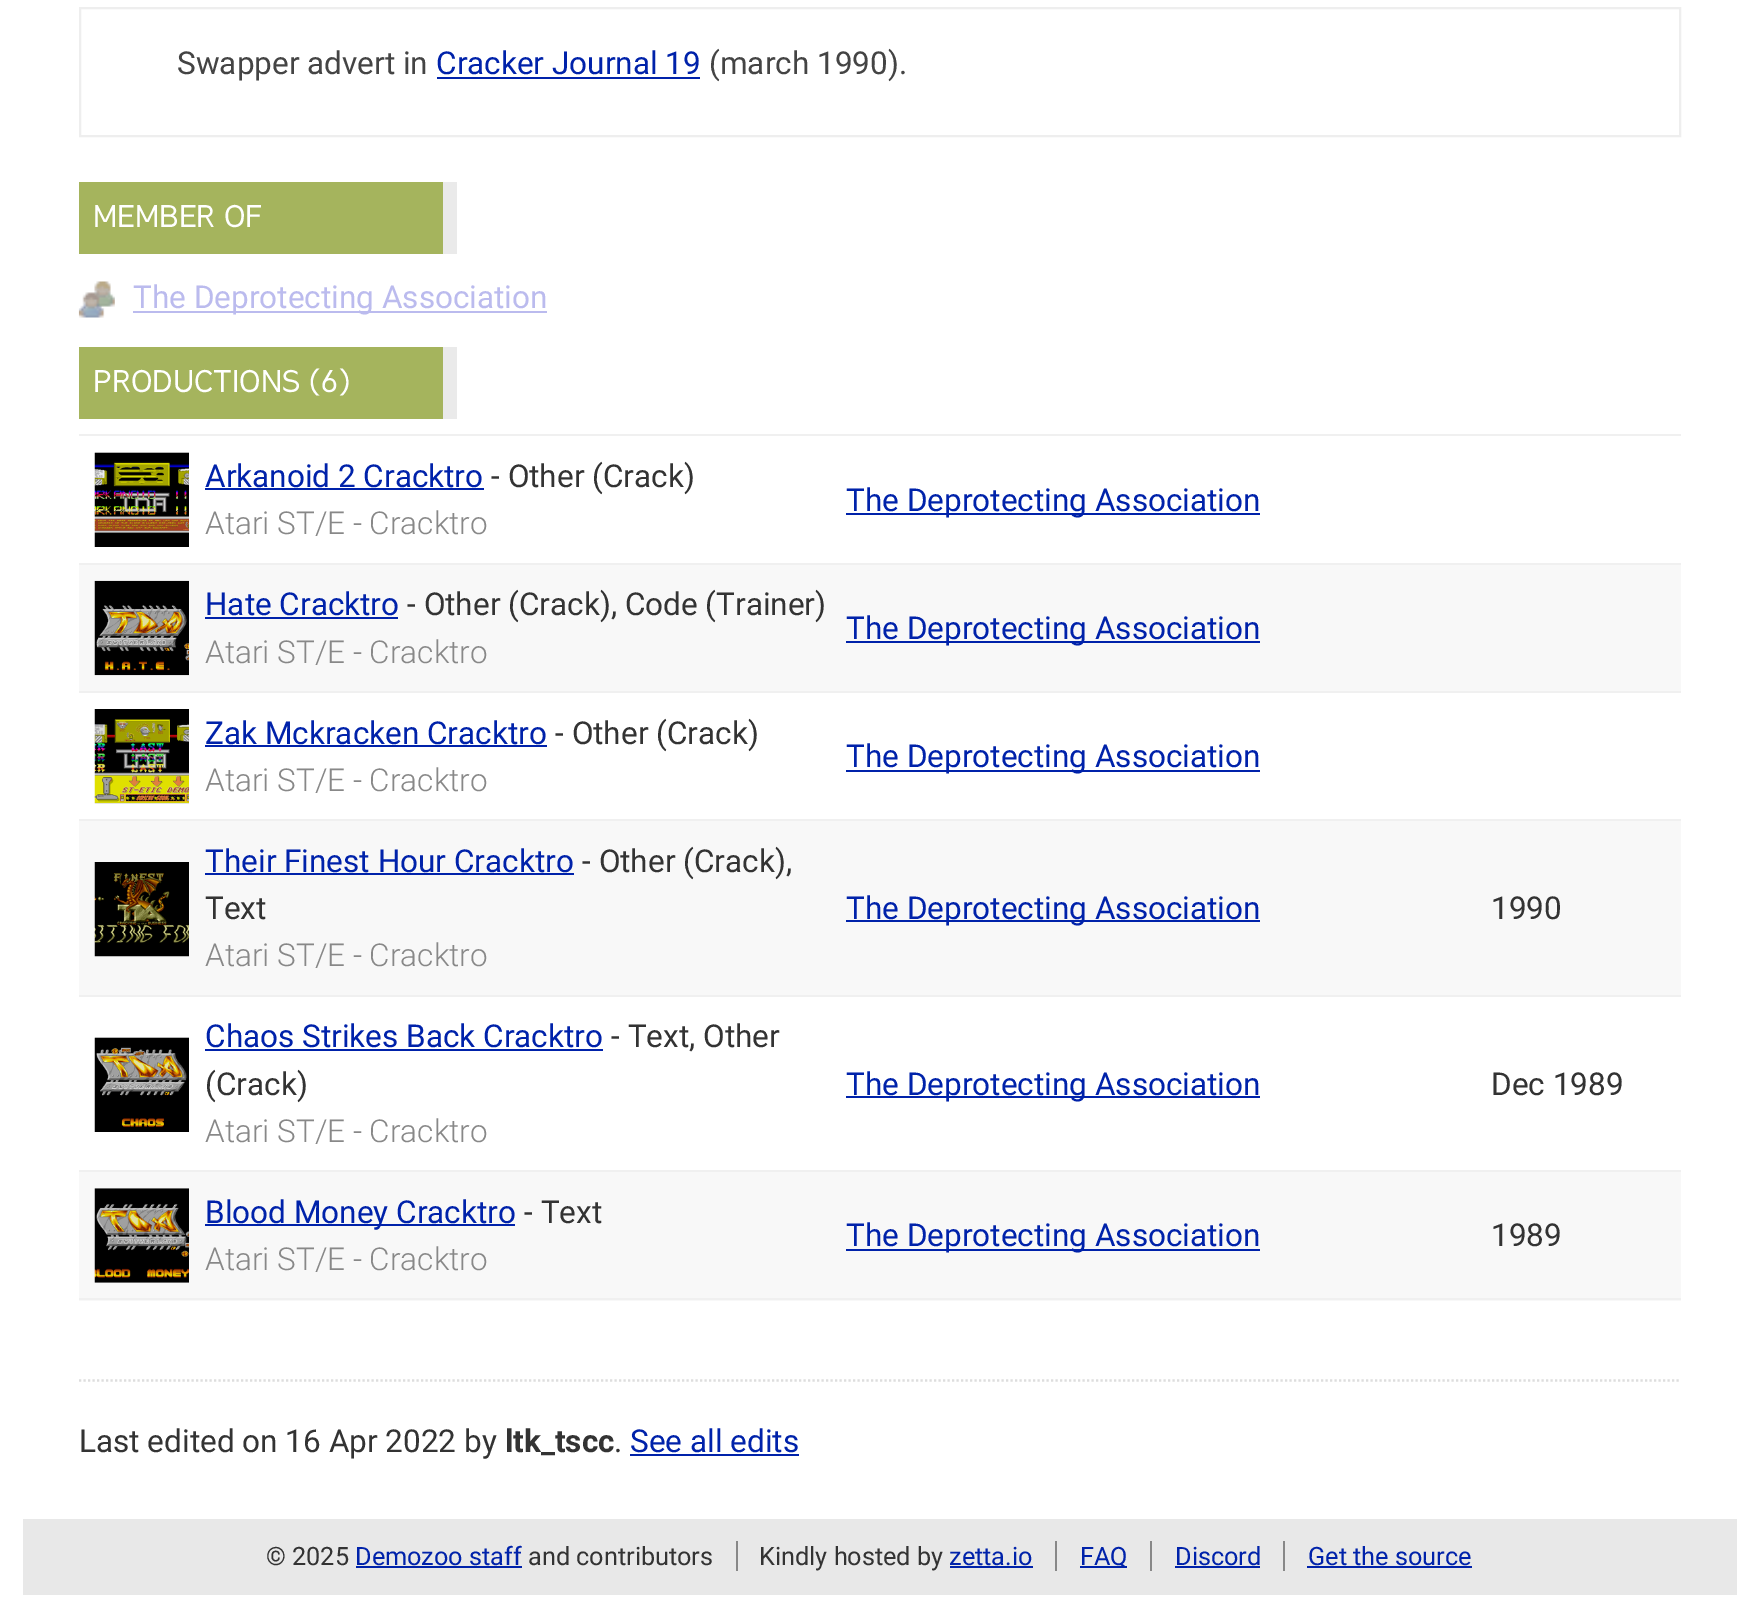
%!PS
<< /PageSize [1759 1616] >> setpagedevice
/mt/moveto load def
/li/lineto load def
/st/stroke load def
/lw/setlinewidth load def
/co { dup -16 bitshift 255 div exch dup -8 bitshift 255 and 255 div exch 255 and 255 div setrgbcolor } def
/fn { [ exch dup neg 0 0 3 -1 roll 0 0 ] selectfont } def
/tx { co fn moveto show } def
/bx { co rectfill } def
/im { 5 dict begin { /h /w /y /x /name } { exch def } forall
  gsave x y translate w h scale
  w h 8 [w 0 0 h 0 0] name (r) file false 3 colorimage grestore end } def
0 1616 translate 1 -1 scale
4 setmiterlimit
0 0 1759 1616 16#FFFFFF bx
16#EEEEEE co
2 lw
80 8 1600 128 rectstroke
437 77 263 2 16#0022AA bx
79 182 364 72 16#A5B45D bx
443 182 14 72 16#EAEAEA bx
(media/1.raw) 78 281 37 37 im
133 311 414 2 16#BBBBEE bx
79 347 364 72 16#A5B45D bx
443 347 14 72 16#EAEAEA bx
79 434 1602 2 16#F0F0F0 bx
95 452 94 1 16#EEEEEE bx
(media/2.raw) 94 452 95 95 im
205 488 279 2 16#0022AA bx
846 513 414 2 16#0022AA bx
79 565 1602 126 16#F8F8F8 bx
79 563 1602 2 16#F0F0F0 bx
(media/3.raw) 94 580 95 96 im
205 617 193 2 16#0022AA bx
846 641 414 2 16#0022AA bx
79 691 1602 2 16#F0F0F0 bx
(media/4.raw) 94 709 95 95 im
205 745 342 2 16#0022AA bx
846 770 414 2 16#0022AA bx
79 821 1602 174 16#F8F8F8 bx
79 819 1602 2 16#F0F0F0 bx
(media/5.raw) 94 862 95 95 im
205 873 369 2 16#0022AA bx
846 920 414 2 16#0022AA bx
79 995 1602 2 16#F0F0F0 bx
95 1037 94 1 16#EEEEEE bx
(media/6.raw) 94 1037 95 95 im
205 1049 398 2 16#0022AA bx
846 1096 414 2 16#0022AA bx
79 1172 1602 129 16#F8F8F8 bx
79 1170 1602 2 16#F0F0F0 bx
79 1298 1602 2 16#F0F0F0 bx
95 1188 94 95 16#EEEEEE bx
(media/7.raw) 94 1188 95 95 im
205 1224 310 2 16#0022AA bx
846 1249 414 2 16#0022AA bx
16#DDDDDD co
2.2 lw
[2.25 2.25] 0 setdash
79 1380.5 mt 1681 1380.5 li st
630 1454 169 2 16#0022AA bx
23 1519 1714 76 16#E8E8E8 bx
356 1566 166 2 16#0022AA bx
736 1541 2 30 16#888888 bx
950 1566 83 2 16#0022AA bx
1055 1541 2 30 16#888888 bx
1080 1566 47 2 16#0022AA bx
1150 1541 2 30 16#888888 bx
1175 1566 85 2 16#0022AA bx
1283 1541 2 30 16#888888 bx
1307 1566 165 2 16#0022AA bx
(Swapper advert in) 177 74 /Roboto-Regular 31.5 16#444444 tx
(Cracker Journal 19) 436 74 /Roboto-Regular 31.5 16#0022AA tx
(\(march 1990\).) 709 74 /Roboto-Regular 31.5 16#444444 tx
(MEMBER OF) 93 227 /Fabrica-Regular 30 16#FFFFFF tx
(The Deprotecting Association) 133 308 /Roboto-Regular 31.5 16#BBBBEE tx
(PRODUCTIONS \(6\)) 93 392 /Fabrica-Regular 30 16#FFFFFF tx
(Arkanoid 2 Cracktro) 205 487 /Roboto-Regular 31.5 16#0022AA tx
(- Other \(Crack\)) 491 487 /Roboto-Regular 31.5 16#333333 tx
(Atari ST/E - Cracktro) 205 534 /Roboto-Light 31.5 16#888888 tx
(The Deprotecting Association) 846 511 /Roboto-Regular 31.5 16#0022AA tx
(Hate Cracktro) 205 615 /Roboto-Regular 31.5 16#0022AA tx
(- Other \(Crack\), Code \(Trainer\)) 407 615 /Roboto-Regular 31.5 16#333333 tx
(Atari ST/E - Cracktro) 205 663 /Roboto-Light 31.5 16#888888 tx
(The Deprotecting Association) 846 639 /Roboto-Regular 31.5 16#0022AA tx
(Zak Mckracken Cracktro) 205 744 /Roboto-Regular 31.5 16#0022AA tx
(- Other \(Crack\)) 555 744 /Roboto-Regular 31.5 16#333333 tx
(Atari ST/E - Cracktro) 205 791 /Roboto-Light 31.5 16#888888 tx
(The Deprotecting Association) 846 767 /Roboto-Regular 31.5 16#0022AA tx
(Their Finest Hour Cracktro) 205 872 /Roboto-Regular 31.5 16#0022AA tx
(- Other \(Crack\),) 582 872 /Roboto-Regular 31.5 16#333333 tx
(Text) 205 919 /Roboto-Regular 31.5 16#333333 tx
(Atari ST/E - Cracktro) 205 966 /Roboto-Light 31.5 16#888888 tx
(The Deprotecting Association) 846 919 /Roboto-Regular 31.5 16#0022AA tx
(1990) 1491 919 /Roboto-Regular 31.5 16#333333 tx
(Chaos Strikes Back Cracktro) 205 1047 /Roboto-Regular 31.5 16#0022AA tx
(- Text, Other) 611 1047 /Roboto-Regular 31.5 16#333333 tx
(\(Crack\)) 205 1095 /Roboto-Regular 31.5 16#333333 tx
(Atari ST/E - Cracktro) 205 1142 /Roboto-Light 31.5 16#888888 tx
(The Deprotecting Association) 846 1095 /Roboto-Regular 31.5 16#0022AA tx
(Dec 1989) 1491 1095 /Roboto-Regular 31.5 16#333333 tx
(Blood Money Cracktro) 205 1223 /Roboto-Regular 31.5 16#0022AA tx
(- Text) 524 1223 /Roboto-Regular 31.5 16#333333 tx
(Atari ST/E - Cracktro) 205 1270 /Roboto-Light 31.5 16#888888 tx
(The Deprotecting Association) 846 1246 /Roboto-Regular 31.5 16#0022AA tx
(1989) 1491 1246 /Roboto-Regular 31.5 16#333333 tx
(Last edited on 16 Apr 2022 by) 79 1452 /Roboto-Regular 31.5 16#333333 tx
(ltk_tscc) 505 1452 /Roboto-Bold 31.5 16#333333 tx
(.) 614 1452 /Roboto-Regular 31.5 16#333333 tx
(See all edits) 630 1452 /Roboto-Regular 31.5 16#0022AA tx
(© 2025) 266 1565 /Roboto-Regular 25.25 16#333333 tx
(Demozoo staff) 355 1565 /Roboto-Regular 25.25 16#0022AA tx
(and contributors) 528 1565 /Roboto-Regular 25.25 16#333333 tx
(Kindly hosted by) 759 1565 /Roboto-Regular 25.25 16#333333 tx
(zetta.io) 949 1565 /Roboto-Regular 25.25 16#0022AA tx
(FAQ) 1080 1565 /Roboto-Regular 25.25 16#0022AA tx
(Discord) 1175 1565 /Roboto-Regular 25.25 16#0022AA tx
(Get the source) 1308 1565 /Roboto-Regular 25.25 16#0022AA tx
showpage
